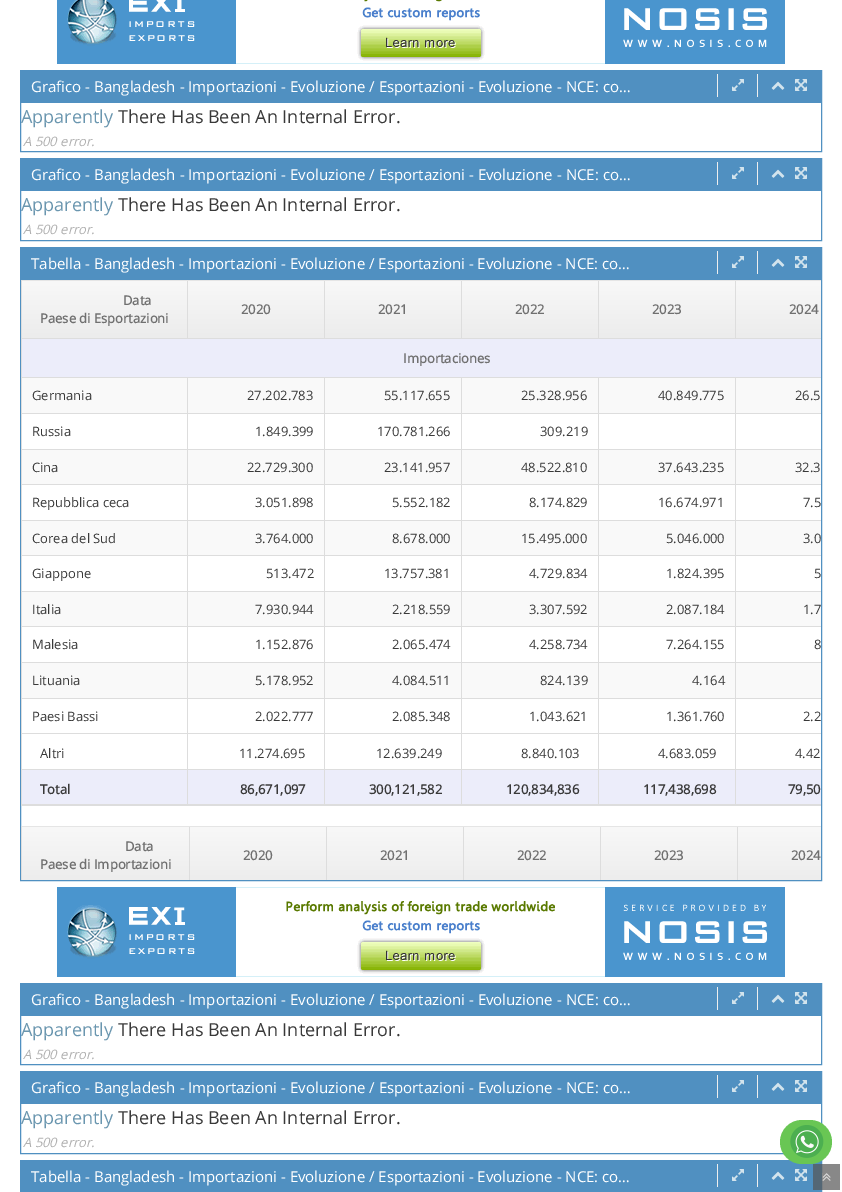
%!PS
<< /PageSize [842 1192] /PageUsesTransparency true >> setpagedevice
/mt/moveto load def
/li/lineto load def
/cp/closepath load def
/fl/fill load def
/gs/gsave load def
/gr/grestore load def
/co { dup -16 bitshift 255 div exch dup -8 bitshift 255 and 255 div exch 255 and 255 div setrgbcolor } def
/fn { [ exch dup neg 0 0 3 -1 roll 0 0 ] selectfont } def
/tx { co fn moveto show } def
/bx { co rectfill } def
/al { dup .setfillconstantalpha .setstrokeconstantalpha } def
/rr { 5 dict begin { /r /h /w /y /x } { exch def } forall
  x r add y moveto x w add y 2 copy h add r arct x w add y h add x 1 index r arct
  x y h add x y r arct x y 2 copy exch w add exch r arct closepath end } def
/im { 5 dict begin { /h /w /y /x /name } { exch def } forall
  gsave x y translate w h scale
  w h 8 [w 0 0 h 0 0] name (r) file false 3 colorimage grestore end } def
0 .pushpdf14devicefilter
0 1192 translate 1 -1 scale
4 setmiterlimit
0 0 842 1192 16#FFFFFF bx
(media/1.raw) 57 0 728 64 im
16#5090C1 co
20.5 70.5 801 81 rectstroke
21 71 800 32 16#5090C1 bx
717 74 1 23 16#EEEEEE bx
(media/2.raw) 732 79 12 12 im
757 74 1 23 16#EEEEEE bx
(media/3.raw) 771 81 14 9 im
(media/4.raw) 795 79 12 12 im
16#5090C1 co
20.5 158.5 801 82 rectstroke
21 159 800 32 16#5090C1 bx
717 162 1 23 16#EEEEEE bx
(media/2.raw) 732 167 12 12 im
757 162 1 23 16#EEEEEE bx
(media/3.raw) 771 169 14 9 im
(media/4.raw) 795 167 12 12 im
16#5090C1 co
20.5 247.5 801 633 rectstroke
21 248 800 32 16#5090C1 bx
717 251 1 23 16#EEEEEE bx
(media/2.raw) 732 256 12 12 im
757 251 1 23 16#EEEEEE bx
(media/3.raw) 771 258 14 9 im
(media/4.raw) 795 256 12 12 im
21 280 800 1 16#E5E5E5 bx
21 805 800 1 16#DDDDDD bx
21 280 1 526 16#DDDDDD bx
gs 22 281 mt 821 281 li 821 338 li 22 338 li cp clip newpath
<< /ShadingType 2 /ColorSpace /DeviceRGB /Coords [448 281 448 339] /Extend [true true] /Function << /FunctionType 2 /Domain [0 1] /C0 [.973 .973 .973] /C1 [.925 .925 .925] /N 1 >> >> shfill gr
187 281 1 58 16#DDDDDD bx
22 338 166 1 16#DDDDDD bx
324 281 1 58 16#DDDDDD bx
188 338 137 1 16#DDDDDD bx
461 281 1 58 16#DDDDDD bx
325 338 137 1 16#DDDDDD bx
598 281 1 58 16#DDDDDD bx
462 338 137 1 16#DDDDDD bx
735 281 1 58 16#DDDDDD bx
599 338 222 1 16#DDDDDD bx
22 339 799 38 16#ECEDFA bx
22 377 799 1 16#DDDDDD bx
22 378 165 35 16#F9F9F9 bx
187 378 1 392 16#DDDDDD bx
22 413 166 1 16#DDDDDD bx
188 378 136 35 16#F9F9F9 bx
324 378 1 392 16#DDDDDD bx
188 413 137 1 16#DDDDDD bx
325 378 136 35 16#F9F9F9 bx
461 378 1 392 16#DDDDDD bx
325 413 137 1 16#DDDDDD bx
462 378 136 35 16#F9F9F9 bx
598 378 1 392 16#DDDDDD bx
462 413 137 1 16#DDDDDD bx
599 378 136 35 16#F9F9F9 bx
735 378 1 392 16#DDDDDD bx
599 413 222 1 16#DDDDDD bx
736 378 85 35 16#F9F9F9 bx
22 449 799 1 16#DDDDDD bx
22 450 165 34 16#F9F9F9 bx
22 484 799 1 16#DDDDDD bx
188 450 136 34 16#F9F9F9 bx
325 450 136 34 16#F9F9F9 bx
462 450 136 34 16#F9F9F9 bx
599 450 136 34 16#F9F9F9 bx
736 450 85 34 16#F9F9F9 bx
22 520 799 1 16#DDDDDD bx
22 521 165 34 16#F9F9F9 bx
22 555 799 1 16#DDDDDD bx
188 521 136 34 16#F9F9F9 bx
325 521 136 34 16#F9F9F9 bx
462 521 136 34 16#F9F9F9 bx
599 521 136 34 16#F9F9F9 bx
736 521 85 34 16#F9F9F9 bx
22 591 799 1 16#DDDDDD bx
22 592 165 34 16#F9F9F9 bx
22 626 799 1 16#DDDDDD bx
188 592 136 34 16#F9F9F9 bx
325 592 136 34 16#F9F9F9 bx
462 592 136 34 16#F9F9F9 bx
599 592 136 34 16#F9F9F9 bx
736 592 85 34 16#F9F9F9 bx
22 662 799 1 16#DDDDDD bx
22 663 165 35 16#F9F9F9 bx
22 698 799 1 16#DDDDDD bx
188 663 136 35 16#F9F9F9 bx
325 663 136 35 16#F9F9F9 bx
462 663 136 35 16#F9F9F9 bx
599 663 136 35 16#F9F9F9 bx
736 663 85 35 16#F9F9F9 bx
22 733 799 1 16#DDDDDD bx
22 769 799 1 16#DDDDDD bx
22 770 799 34 16#ECEDFA bx
187 770 1 35 16#DDDDDD bx
22 804 166 1 16#DDDDDD bx
324 770 1 35 16#DDDDDD bx
188 804 137 1 16#DDDDDD bx
461 770 1 35 16#DDDDDD bx
325 804 137 1 16#DDDDDD bx
598 770 1 35 16#DDDDDD bx
462 804 137 1 16#DDDDDD bx
735 770 1 35 16#DDDDDD bx
599 804 222 1 16#DDDDDD bx
21 826 800 1 16#E5E5E5 bx
21 826 1 54 16#DDDDDD bx
gs 22 827 mt 821 827 li 821 880 li 22 880 li cp clip newpath
<< /ShadingType 2 /ColorSpace /DeviceRGB /Coords [449 827 449 885] /Extend [true true] /Function << /FunctionType 2 /Domain [0 1] /C0 [.973 .973 .973] /C1 [.925 .925 .925] /N 1 >> >> shfill gr
189 827 1 53 16#DDDDDD bx
326 827 1 53 16#DDDDDD bx
463 827 1 53 16#DDDDDD bx
600 827 1 53 16#DDDDDD bx
737 827 1 53 16#DDDDDD bx
(media/5.raw) 57 887 728 90 im
16#5090C1 co
20.5 983.5 801 81 rectstroke
21 984 800 32 16#5090C1 bx
717 987 1 23 16#EEEEEE bx
(media/2.raw) 732 992 12 12 im
757 987 1 23 16#EEEEEE bx
(media/3.raw) 771 994 14 9 im
(media/4.raw) 795 992 12 12 im
16#5090C1 co
20.5 1071.5 801 82 rectstroke
21 1072 800 32 16#5090C1 bx
717 1075 1 23 16#EEEEEE bx
(media/2.raw) 732 1080 12 12 im
757 1075 1 23 16#EEEEEE bx
(media/3.raw) 771 1082 14 9 im
(media/4.raw) 795 1080 12 12 im
16#5090C1 co
20.5 1160.5 801 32 rectstroke
21 1161 800 31 16#5090C1 bx
717 1164 1 23 16#EEEEEE bx
(media/2.raw) 732 1169 12 12 im
757 1164 1 23 16#EEEEEE bx
(media/3.raw) 771 1171 14 9 im
(media/4.raw) 795 1169 12 12 im
0.7 al
813 1164 27 26 16#555555 bx
1 al
(media/6.raw) 822 1173 9 8 im
16#69C654 co
780 1120 52 44 22 rr fl
(media/7.raw) 790 1125 34 33 im
(Grafico - Bangladesh - Importazioni - Evoluzione / Esportazioni - Evoluzione - NCE: co…) 31 92 /OpenSans-Regular 15 16#FFFFFF tx
(Apparently) 21 123 /OpenSans-Regular 18 16#6A96AF tx
(There Has Been An Internal Error.) 118 123 /OpenSans-Regular 18 16#393939 tx
(A 500 error.) 23 146 /OpenSans-Italic 13 16#B0B0B0 tx
(Grafico - Bangladesh - Importazioni - Evoluzione / Esportazioni - Evoluzione - NCE: co…) 31 180 /OpenSans-Regular 15 16#FFFFFF tx
(Apparently) 21 211 /OpenSans-Regular 18 16#6A96AF tx
(There Has Been An Internal Error.) 118 211 /OpenSans-Regular 18 16#393939 tx
(A 500 error.) 23 234 /OpenSans-Italic 13 16#B0B0B0 tx
(Tabella - Bangladesh - Importazioni - Evoluzione / Esportazioni - Evoluzione - NCE: co…) 31 269 /OpenSans-Regular 15 16#FFFFFF tx
(Data) 123 305 /OpenSans-Bold 13 16#707070 tx
(Paese di Esportazioni) 40 323 /OpenSans-Bold 13 16#707070 tx
(2020) 241 314 /OpenSans-Bold 13 16#707070 tx
(2021) 378 314 /OpenSans-Bold 13 16#707070 tx
(2022) 515 314 /OpenSans-Bold 13 16#707070 tx
(2023) 652 314 /OpenSans-Bold 13 16#707070 tx
(2024) 789 314 /OpenSans-Bold 13 16#707070 tx
(Importaciones) 403 363 /OpenSans-Bold 13 16#707070 tx
(Germania) 32 400 /OpenSans-Regular 13 16#393939 tx
(27.202.783) 247 400 /OpenSans-Regular 13 16#393939 tx
(55.117.655) 384 400 /OpenSans-Regular 13 16#393939 tx
(25.328.956) 521 400 /OpenSans-Regular 13 16#393939 tx
(40.849.775) 658 400 /OpenSans-Regular 13 16#393939 tx
(26.5) 795 400 /OpenSans-Regular 13 16#393939 tx
(Russia) 32 436 /OpenSans-Regular 13 16#393939 tx
(1.849.399) 255 436 /OpenSans-Regular 13 16#393939 tx
(170.781.266) 377 436 /OpenSans-Regular 13 16#393939 tx
(309.219) 540 436 /OpenSans-Regular 13 16#393939 tx
(Cina) 32 472 /OpenSans-Regular 13 16#393939 tx
(22.729.300) 247 472 /OpenSans-Regular 13 16#393939 tx
(23.141.957) 384 472 /OpenSans-Regular 13 16#393939 tx
(48.522.810) 521 472 /OpenSans-Regular 13 16#393939 tx
(37.643.235) 658 472 /OpenSans-Regular 13 16#393939 tx
(32.3) 795 472 /OpenSans-Regular 13 16#393939 tx
(Repubblica ceca) 32 507 /OpenSans-Regular 13 16#393939 tx
(3.051.898) 255 507 /OpenSans-Regular 13 16#393939 tx
(5.552.182) 392 507 /OpenSans-Regular 13 16#393939 tx
(8.174.829) 529 507 /OpenSans-Regular 13 16#393939 tx
(16.674.971) 658 507 /OpenSans-Regular 13 16#393939 tx
(7.5) 803 507 /OpenSans-Regular 13 16#393939 tx
(Corea del Sud) 32 543 /OpenSans-Regular 13 16#393939 tx
(3.764.000) 255 543 /OpenSans-Regular 13 16#393939 tx
(8.678.000) 392 543 /OpenSans-Regular 13 16#393939 tx
(15.495.000) 521 543 /OpenSans-Regular 13 16#393939 tx
(5.046.000) 666 543 /OpenSans-Regular 13 16#393939 tx
(3.0) 803 543 /OpenSans-Regular 13 16#393939 tx
(Giappone) 32 578 /OpenSans-Regular 13 16#393939 tx
(513.472) 266 578 /OpenSans-Regular 13 16#393939 tx
(13.757.381) 384 578 /OpenSans-Regular 13 16#393939 tx
(4.729.834) 529 578 /OpenSans-Regular 13 16#393939 tx
(1.824.395) 666 578 /OpenSans-Regular 13 16#393939 tx
(5) 814 578 /OpenSans-Regular 13 16#393939 tx
(Italia) 32 614 /OpenSans-Regular 13 16#393939 tx
(7.930.944) 255 614 /OpenSans-Regular 13 16#393939 tx
(2.218.559) 392 614 /OpenSans-Regular 13 16#393939 tx
(3.307.592) 529 614 /OpenSans-Regular 13 16#393939 tx
(2.087.184) 666 614 /OpenSans-Regular 13 16#393939 tx
(1.7) 803 614 /OpenSans-Regular 13 16#393939 tx
(Malesia) 32 649 /OpenSans-Regular 13 16#393939 tx
(1.152.876) 255 649 /OpenSans-Regular 13 16#393939 tx
(2.065.474) 392 649 /OpenSans-Regular 13 16#393939 tx
(4.258.734) 529 649 /OpenSans-Regular 13 16#393939 tx
(7.264.155) 666 649 /OpenSans-Regular 13 16#393939 tx
(8) 814 649 /OpenSans-Regular 13 16#393939 tx
(Lituania) 32 685 /OpenSans-Regular 13 16#393939 tx
(5.178.952) 255 685 /OpenSans-Regular 13 16#393939 tx
(4.084.511) 392 685 /OpenSans-Regular 13 16#393939 tx
(824.139) 540 685 /OpenSans-Regular 13 16#393939 tx
(4.164) 692 685 /OpenSans-Regular 13 16#393939 tx
(Paesi Bassi) 32 721 /OpenSans-Regular 13 16#393939 tx
(2.022.777) 255 721 /OpenSans-Regular 13 16#393939 tx
(2.085.348) 392 721 /OpenSans-Regular 13 16#393939 tx
(1.043.621) 529 721 /OpenSans-Regular 13 16#393939 tx
(1.361.760) 666 721 /OpenSans-Regular 13 16#393939 tx
(2.2) 803 721 /OpenSans-Regular 13 16#393939 tx
(Altri) 40 758 /OpenSans-Regular 13 16#393939 tx
(11.274.695) 239 758 /OpenSans-Regular 13 16#393939 tx
(12.639.249) 376 758 /OpenSans-Regular 13 16#393939 tx
(8.840.103) 521 758 /OpenSans-Regular 13 16#393939 tx
(4.683.059) 658 758 /OpenSans-Regular 13 16#393939 tx
(4.42) 795 758 /OpenSans-Regular 13 16#393939 tx
(Total) 40 794 /OpenSans-Bold 13 16#393939 tx
(86,671,097) 240 794 /OpenSans-Bold 13 16#393939 tx
(300,121,582) 369 794 /OpenSans-Bold 13 16#393939 tx
(120,834,836) 506 794 /OpenSans-Bold 13 16#393939 tx
(117,438,698) 643 794 /OpenSans-Bold 13 16#393939 tx
(79,50) 788 794 /OpenSans-Bold 13 16#393939 tx
(Data) 125 851 /OpenSans-Bold 13 16#707070 tx
(Paese di Importazioni) 40 869 /OpenSans-Bold 13 16#707070 tx
(2020) 243 860 /OpenSans-Bold 13 16#707070 tx
(2021) 380 860 /OpenSans-Bold 13 16#707070 tx
(2022) 517 860 /OpenSans-Bold 13 16#707070 tx
(2023) 654 860 /OpenSans-Bold 13 16#707070 tx
(2024) 791 860 /OpenSans-Bold 13 16#707070 tx
(Grafico - Bangladesh - Importazioni - Evoluzione / Esportazioni - Evoluzione - NCE: co…) 31 1005 /OpenSans-Regular 15 16#FFFFFF tx
(Apparently) 21 1036 /OpenSans-Regular 18 16#6A96AF tx
(There Has Been An Internal Error.) 118 1036 /OpenSans-Regular 18 16#393939 tx
(A 500 error.) 23 1059 /OpenSans-Italic 13 16#B0B0B0 tx
(Grafico - Bangladesh - Importazioni - Evoluzione / Esportazioni - Evoluzione - NCE: co…) 31 1093 /OpenSans-Regular 15 16#FFFFFF tx
(Apparently) 21 1124 /OpenSans-Regular 18 16#6A96AF tx
(There Has Been An Internal Error.) 118 1124 /OpenSans-Regular 18 16#393939 tx
(A 500 error.) 23 1147 /OpenSans-Italic 13 16#B0B0B0 tx
(Tabella - Bangladesh - Importazioni - Evoluzione / Esportazioni - Evoluzione - NCE: co…) 31 1182 /OpenSans-Regular 15 16#FFFFFF tx
.poppdf14devicefilter showpage
